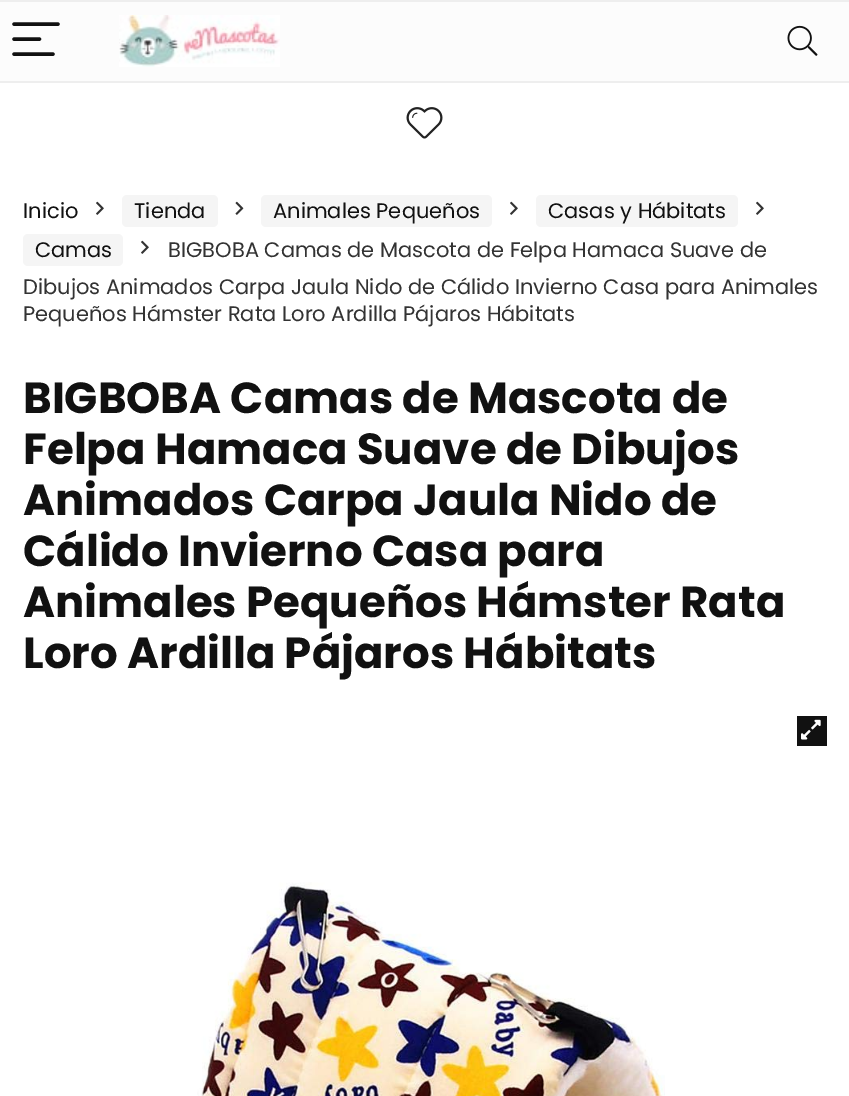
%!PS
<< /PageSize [849 1096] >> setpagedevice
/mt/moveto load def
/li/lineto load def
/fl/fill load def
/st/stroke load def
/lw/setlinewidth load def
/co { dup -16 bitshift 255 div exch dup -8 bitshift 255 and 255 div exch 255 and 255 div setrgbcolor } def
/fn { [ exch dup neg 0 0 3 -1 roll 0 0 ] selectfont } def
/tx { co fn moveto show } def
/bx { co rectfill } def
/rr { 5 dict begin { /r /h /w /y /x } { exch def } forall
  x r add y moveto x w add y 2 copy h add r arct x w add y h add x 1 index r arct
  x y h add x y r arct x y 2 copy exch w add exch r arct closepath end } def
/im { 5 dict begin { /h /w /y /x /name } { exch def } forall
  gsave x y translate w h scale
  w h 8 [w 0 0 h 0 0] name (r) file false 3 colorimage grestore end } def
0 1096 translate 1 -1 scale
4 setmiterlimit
0 0 849 1096 16#FFFFFF bx
0 2 849 79 16#FCFCFC bx
0 0 849 2 16#EEEEEE bx
0 81 849 2 16#EEEEEE bx
16#111111 co
3.4 lw
1 setlinecap
14 24 mt 58 24 li 14 39 mt 39.5 39 li 14 54 mt 53 54 li st
(media/1.raw) 119 15 161 52 im
(media/2.raw) 787 25 31 31 im
(media/3.raw) 406 107 37 32 im
(media/4.raw) 96 201 8 14 im
16#F5F5F5 co
122 195 96 32 5 rr fl
(media/5.raw) 235 201 9 14 im
261 195 231 32 5 rr fl
(media/4.raw) 510 201 8 14 im
536 195 202 32 5 rr fl
(media/4.raw) 756 201 8 14 im
23 234 100 32 5 rr fl
(media/4.raw) 141 240 8 14 im
797 716 30 30 16#111111 bx
(media/6.raw) 801 719 20 21 im
(media/7.raw) 197 882 468 214 im
(Inicio) 23 218 /Poppins-Regular 21 16#111111 tx
(Tienda) 134 218 /Poppins-Regular 21 16#111111 tx
(Animales Pequeños) 273 218 /Poppins-Regular 21 16#111111 tx
(Casas y Hábitats) 548 218 /Poppins-Regular 21 16#111111 tx
(Camas) 35 257 /Poppins-Regular 21 16#111111 tx
(BIGBOBA Camas de Mascota de Felpa Hamaca Suave de) 168 257 /Poppins-Regular 21 16#333333 tx
(Dibujos Animados Carpa Jaula Nido de Cálido Invierno Casa para Animales) 23 294 /Poppins-Regular 21 16#333333 tx
(Pequeños Hámster Rata Loro Ardilla Pájaros Hábitats) 23 321 /Poppins-Regular 21 16#333333 tx
(BIGBOBA Camas de Mascota de) 23 413 /Poppins-Bold 43.5 16#111111 tx
(Felpa Hamaca Suave de Dibujos) 23 464 /Poppins-Bold 43.5 16#111111 tx
(Animados Carpa Jaula Nido de) 23 515 /Poppins-Bold 43.5 16#111111 tx
(Cálido Invierno Casa para) 23 566 /Poppins-Bold 43.5 16#111111 tx
(Animales Pequeños Hámster Rata) 23 617 /Poppins-Bold 43.5 16#111111 tx
(Loro Ardilla Pájaros Hábitats) 23 668 /Poppins-Bold 43.5 16#111111 tx
showpage
